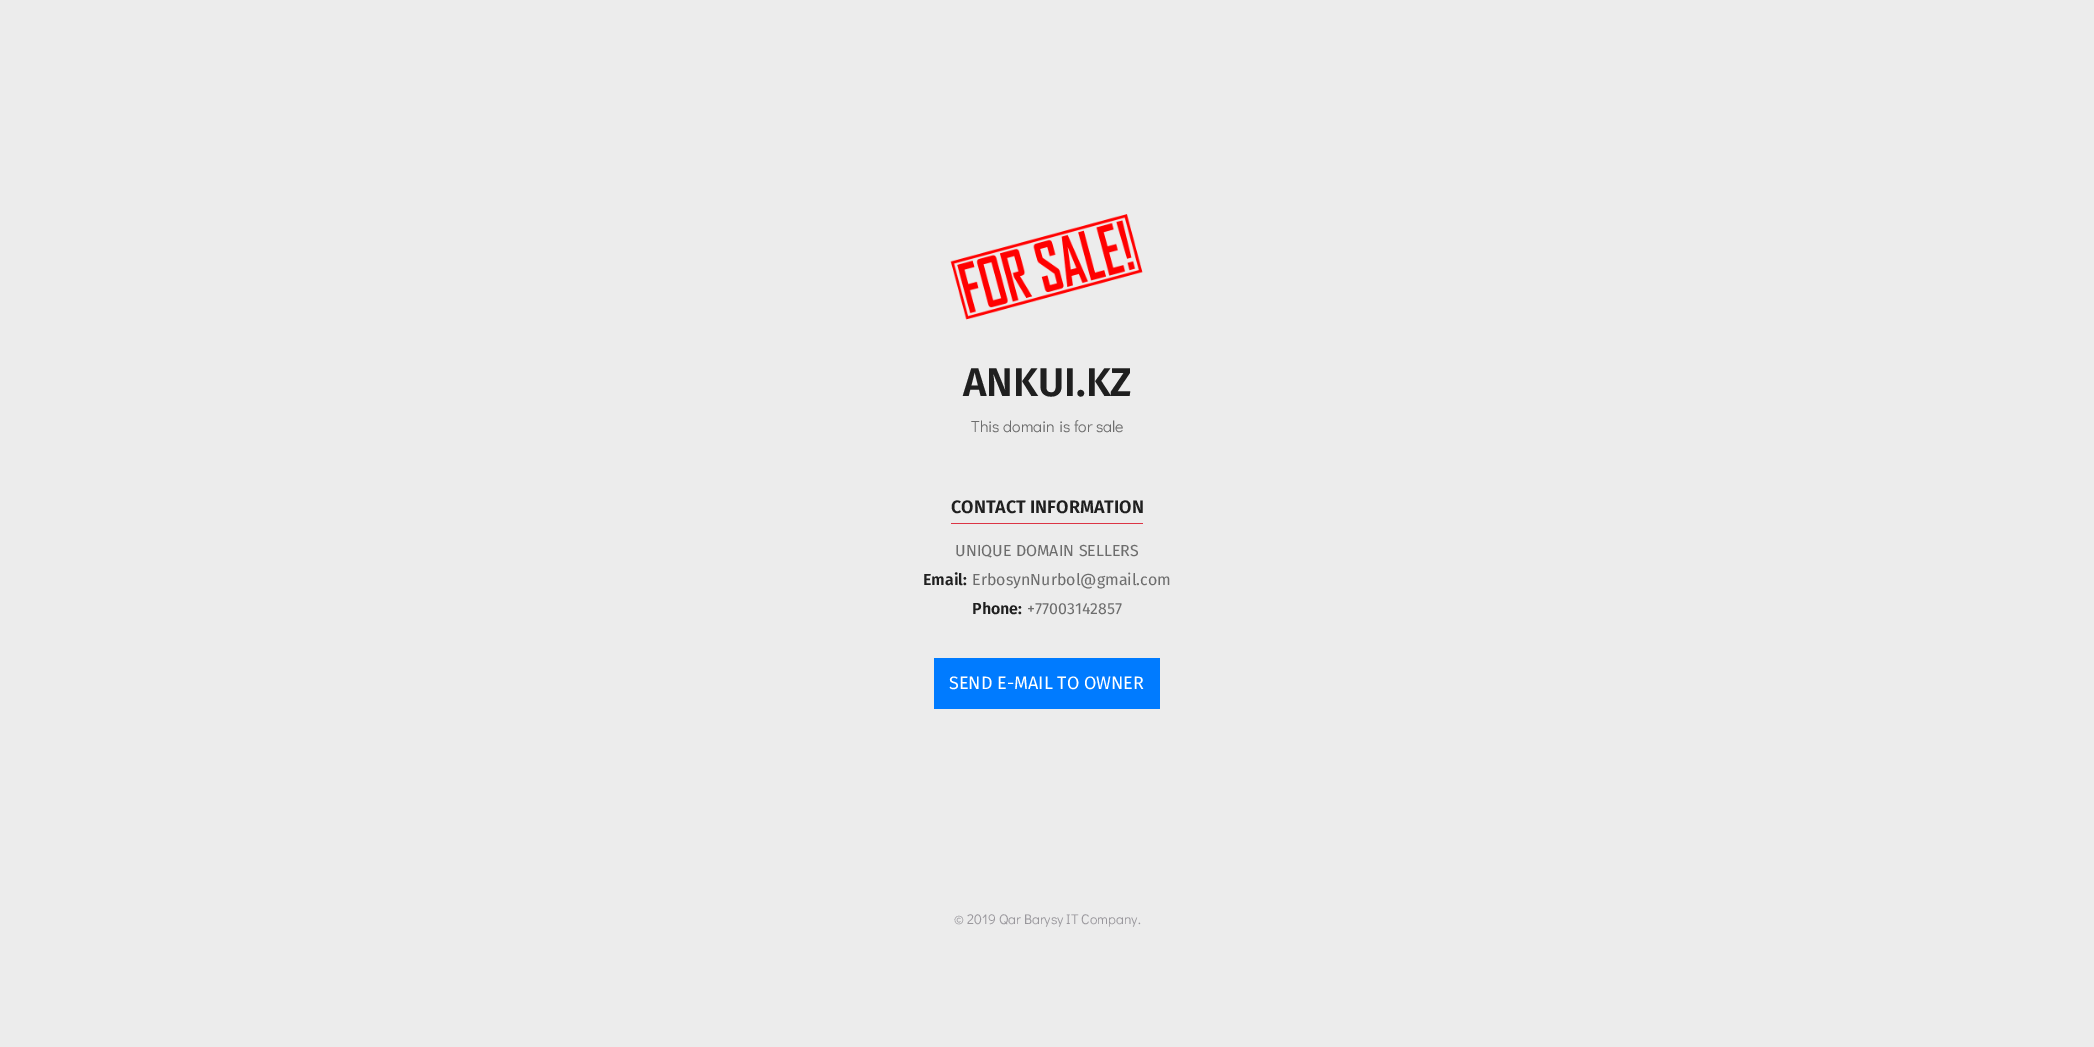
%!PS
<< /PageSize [2094 1047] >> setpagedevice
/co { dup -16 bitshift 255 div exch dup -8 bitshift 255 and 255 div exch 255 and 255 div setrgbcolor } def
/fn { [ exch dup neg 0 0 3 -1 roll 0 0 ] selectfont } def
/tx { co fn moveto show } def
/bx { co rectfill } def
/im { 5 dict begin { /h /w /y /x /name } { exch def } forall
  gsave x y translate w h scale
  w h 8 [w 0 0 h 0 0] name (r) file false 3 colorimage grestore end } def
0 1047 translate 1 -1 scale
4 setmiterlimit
0 0 2094 1047 16#ECECEC bx
(media/1.raw) 950 214 193 106 im
951 523 192 1 16#DC3545 bx
934 658 226 51 16#007BFF bx
(ANKUI.KZ) 963 396 /FiraSans-SemiBold 40 16#1F1F1F tx
(This domain is for sale) 971 432 /DidactGothic-Regular 16 16#6D6D6D tx
(CONTACT INFORMATION) 951 513 /FiraSans-SemiBold 18 16#1F1F1F tx
(UNIQUE DOMAIN SELLERS) 955 556 /FiraSans-Regular 16 16#6D6D6D tx
(Email:) 923 585 /FiraSans-SemiBold 16 16#1F1F1F tx
(ErbosynNurbol@gmail.com) 972 585 /FiraSans-Regular 16 16#6D6D6D tx
(Phone:) 972 614 /FiraSans-SemiBold 16 16#1F1F1F tx
(+77003142857) 1027 614 /FiraSans-Regular 16 16#6D6D6D tx
(SEND E-MAIL TO OWNER) 949 689 /FiraSans-Regular 18 16#FFFFFF tx
(© 2019 Qar Barysy IT Company.) 954 924 /DidactGothic-Regular 14 16#99979C tx
showpage
